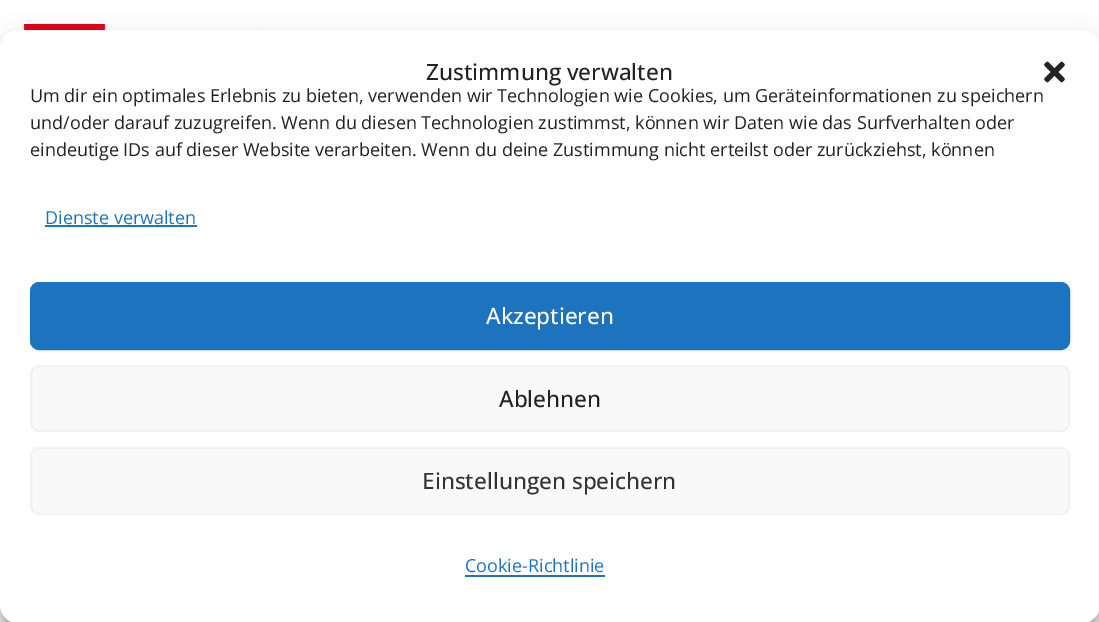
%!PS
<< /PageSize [1099 622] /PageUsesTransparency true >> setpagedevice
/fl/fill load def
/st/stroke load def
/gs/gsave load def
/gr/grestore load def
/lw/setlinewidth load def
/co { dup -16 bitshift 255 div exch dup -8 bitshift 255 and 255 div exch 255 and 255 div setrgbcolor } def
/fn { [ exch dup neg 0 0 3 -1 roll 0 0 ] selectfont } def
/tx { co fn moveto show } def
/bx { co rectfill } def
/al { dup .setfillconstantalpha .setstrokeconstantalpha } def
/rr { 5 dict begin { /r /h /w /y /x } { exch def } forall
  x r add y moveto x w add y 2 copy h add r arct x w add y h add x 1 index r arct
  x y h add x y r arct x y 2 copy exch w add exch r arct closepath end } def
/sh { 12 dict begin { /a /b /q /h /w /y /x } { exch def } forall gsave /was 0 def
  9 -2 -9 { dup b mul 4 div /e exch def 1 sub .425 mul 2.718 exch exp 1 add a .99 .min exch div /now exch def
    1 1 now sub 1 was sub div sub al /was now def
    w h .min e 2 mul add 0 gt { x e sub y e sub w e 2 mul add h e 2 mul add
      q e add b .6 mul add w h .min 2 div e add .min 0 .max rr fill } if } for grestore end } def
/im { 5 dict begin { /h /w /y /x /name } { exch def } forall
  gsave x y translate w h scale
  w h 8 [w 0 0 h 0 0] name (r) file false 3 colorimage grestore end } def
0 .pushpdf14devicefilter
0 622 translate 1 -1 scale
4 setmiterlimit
0 0 1099 622 16#FFFFFF bx
(media/1.raw) 24 24 438 6 im
16#000000 co
0 39 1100 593 18 4.5 .23 sh
0 45 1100 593 18 15 .19 sh
16#FFFFFF co
0 30 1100 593 18 rr fl
(media/2.raw) 1044 61 21 22 im
45 225 152 2 16#1E73BE bx
31 283 1038 66 8 rr gs fl gr
2 lw
st
16#F9F9F9 co
31 366 1038 65 8 rr gs fl gr
16#F2F2F2 co
st
16#F9F9F9 co
31 448 1038 66 8 rr gs fl gr
16#F2F2F2 co
st
465 575 140 2 16#1E73BE bx
(Zustimmung verwalten) 426 80 /OpenSans-Medium 22.5 16#222222 tx
(Um dir ein optimales Erlebnis zu bieten, verwenden wir Technologien wie Cookies, um Geräteinformationen zu speichern) 30 102 /OpenSans-Regular 18 16#222222 tx
(und/oder darauf zuzugreifen. Wenn du diesen Technologien zustimmst, können wir Daten wie das Surfverhalten oder) 30 129 /OpenSans-Regular 18 16#222222 tx
(eindeutige IDs auf dieser Website verarbeiten. Wenn du deine Zustimmung nicht erteilst oder zurückziehst, können) 30 156 /OpenSans-Regular 18 16#222222 tx
(Dienste verwalten) 45 224 /OpenSans-Regular 18 16#1E73BE tx
(Akzeptieren) 486 324 /OpenSans-Medium 22.5 16#FFFFFF tx
(Ablehnen) 499 407 /OpenSans-Medium 22.5 16#222222 tx
(Einstellungen speichern) 422 489 /OpenSans-Medium 22.5 16#333333 tx
(Cookie-Richtlinie) 465 572 /OpenSans-Regular 18 16#1E73BE tx
.poppdf14devicefilter showpage
